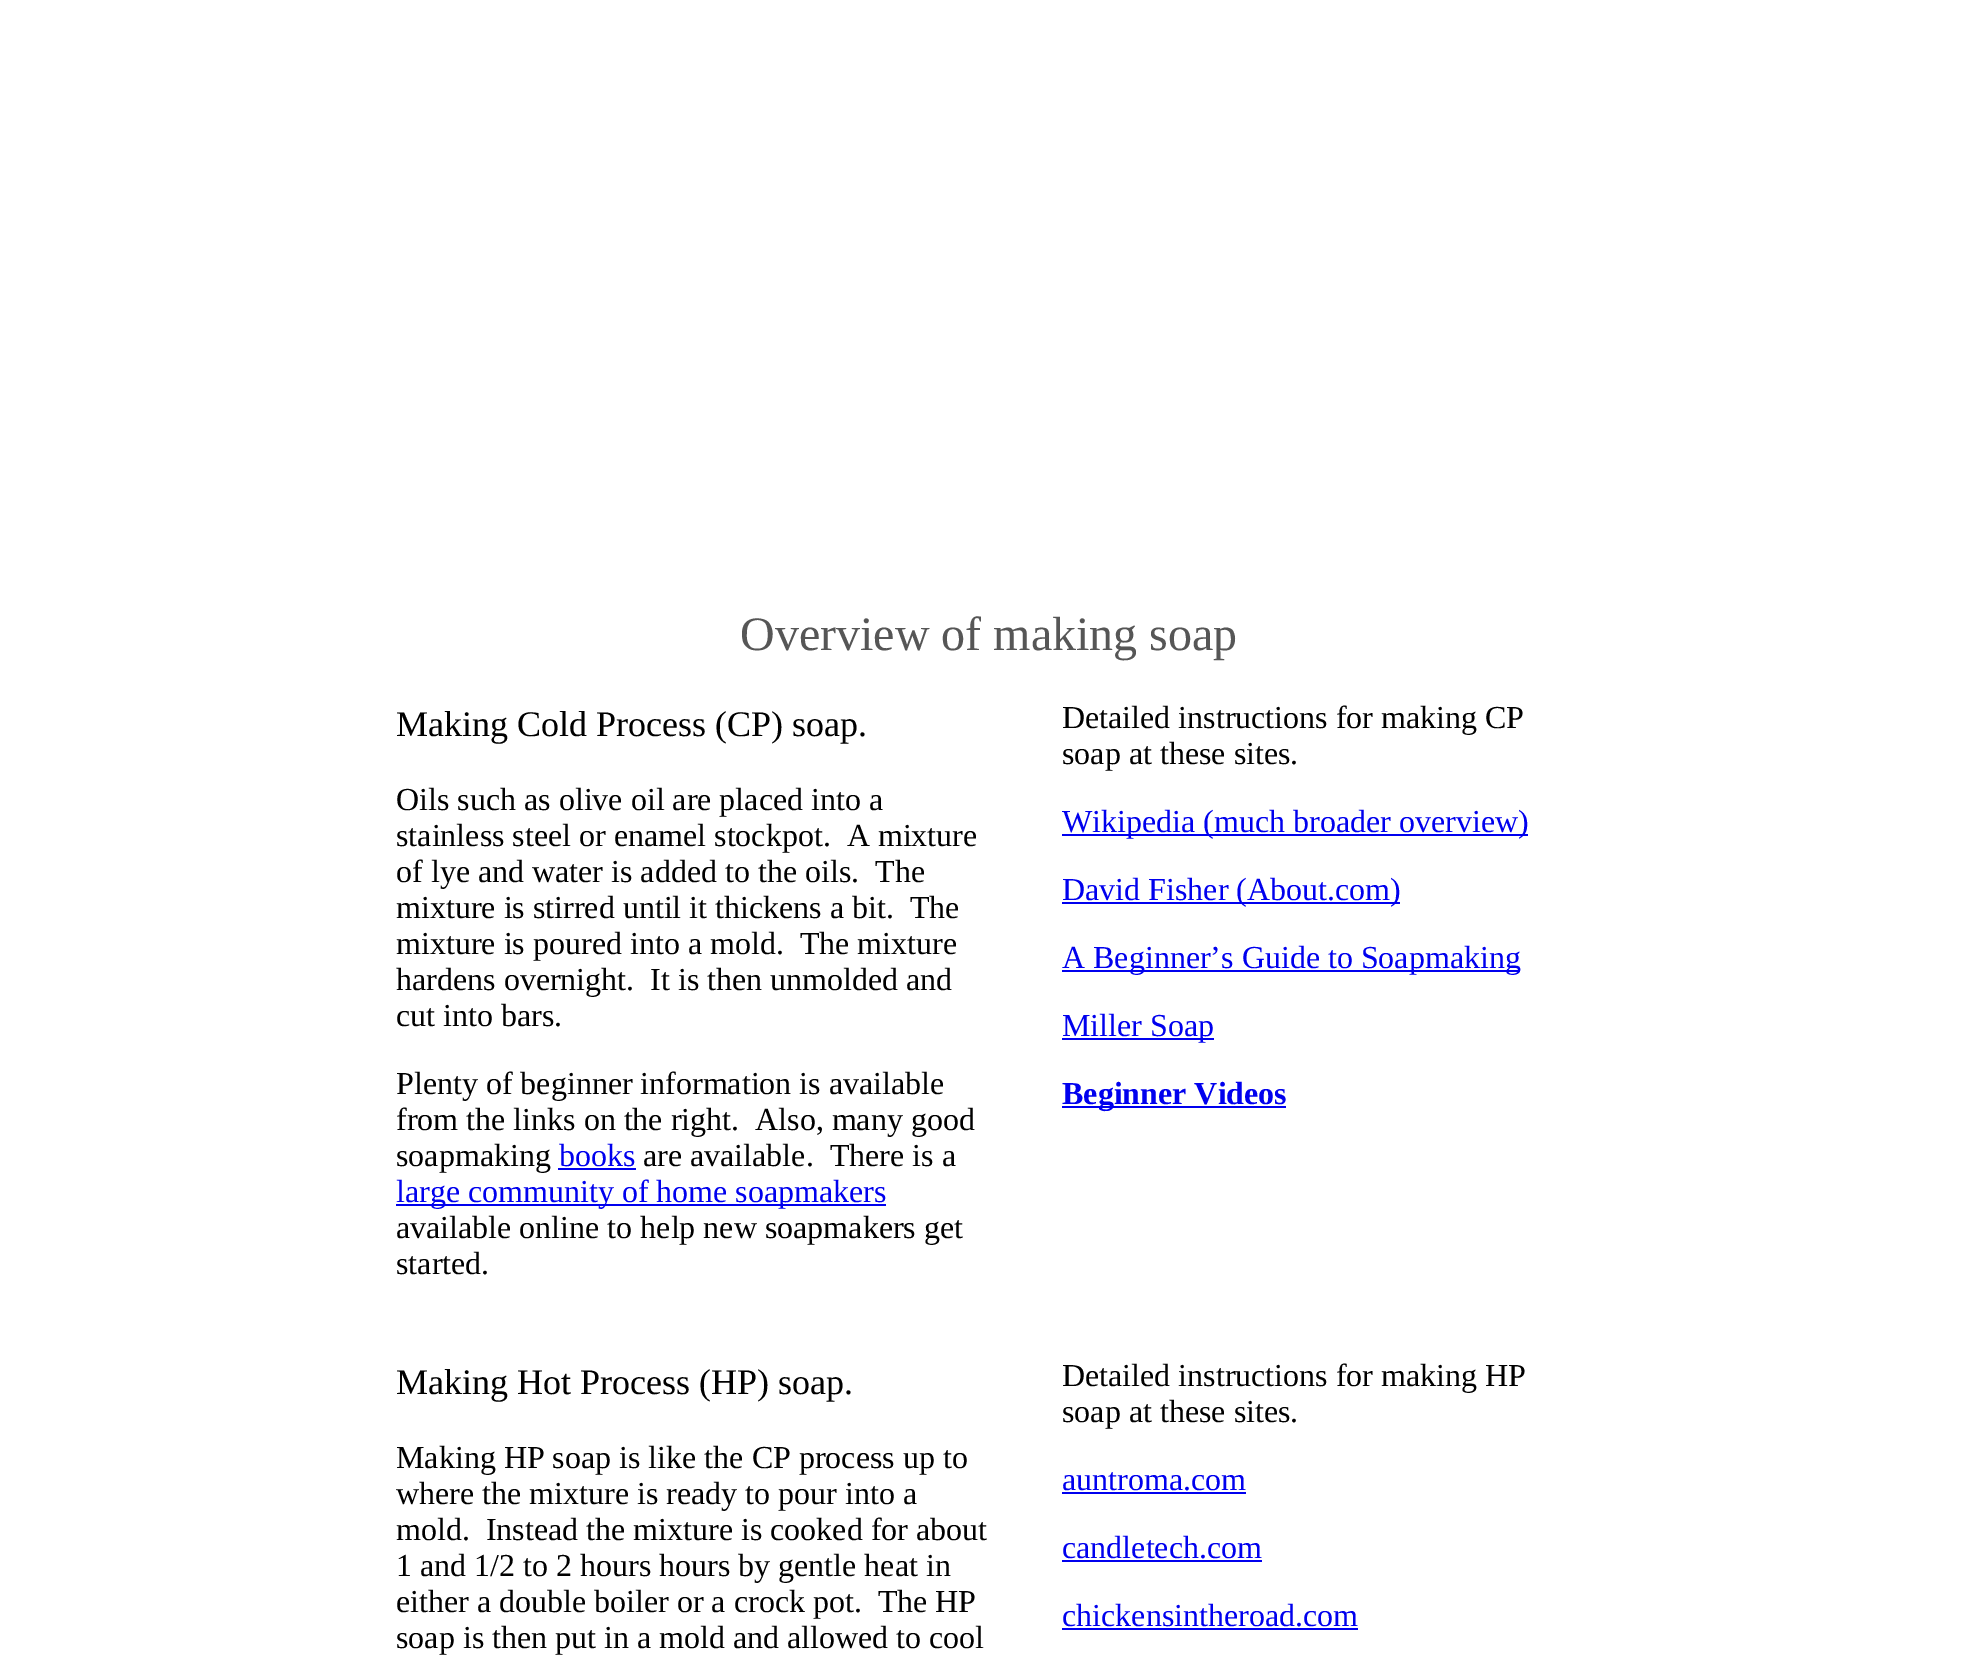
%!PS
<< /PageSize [1978 1669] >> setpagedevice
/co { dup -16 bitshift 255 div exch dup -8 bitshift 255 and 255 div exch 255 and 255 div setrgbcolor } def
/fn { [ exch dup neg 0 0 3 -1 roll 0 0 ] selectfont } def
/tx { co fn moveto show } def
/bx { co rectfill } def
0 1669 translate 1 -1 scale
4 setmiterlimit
0 0 1978 1669 16#FFFFFF bx
558 1168 78 2 16#0000EE bx
396 1204 490 2 16#0000EE bx
1062 834 466 2 16#0000EE bx
1062 902 338 2 16#0000EE bx
1062 970 458 2 16#0000EE bx
1062 1038 152 2 16#0000EE bx
1062 1106 224 2 16#0000EE bx
1062 1492 184 2 16#0000EE bx
1062 1560 200 2 16#0000EE bx
1062 1628 296 2 16#0000EE bx
(Overview of making soap) 740 650 /LiberationSerif-Regular 48 16#565656 tx
(Making Cold Process \(CP\) soap.) 396 736 /LiberationSerif-Regular 36 16#000000 tx
(Oils such as olive oil are placed into a) 396 810 /LiberationSerif-Regular 32 16#000000 tx
(stainless steel or enamel stockpot.  A mixture) 396 846 /LiberationSerif-Regular 32 16#000000 tx
(of lye and water is added to the oils.  The) 396 882 /LiberationSerif-Regular 32 16#000000 tx
(mixture is stirred until it thickens a bit.  The) 396 918 /LiberationSerif-Regular 32 16#000000 tx
(mixture is poured into a mold.  The mixture) 396 954 /LiberationSerif-Regular 32 16#000000 tx
(hardens overnight.  It is then unmolded and) 396 990 /LiberationSerif-Regular 32 16#000000 tx
(cut into bars.) 396 1026 /LiberationSerif-Regular 32 16#000000 tx
(Plenty of beginner information is available) 396 1094 /LiberationSerif-Regular 32 16#000000 tx
(from the links on the right.  Also, many good) 396 1130 /LiberationSerif-Regular 32 16#000000 tx
(soapmaking) 396 1166 /LiberationSerif-Regular 32 16#000000 tx
(books) 559 1166 /LiberationSerif-Regular 32 16#0000EE tx
(are available.  There is a) 643 1166 /LiberationSerif-Regular 32 16#000000 tx
(large community of home soapmakers) 396 1202 /LiberationSerif-Regular 32 16#0000EE tx
(available online to help new soapmakers get) 396 1238 /LiberationSerif-Regular 32 16#000000 tx
(started.) 396 1274 /LiberationSerif-Regular 32 16#000000 tx
(Detailed instructions for making CP) 1062 728 /LiberationSerif-Regular 32 16#000000 tx
(soap at these sites.) 1062 764 /LiberationSerif-Regular 32 16#000000 tx
(Wikipedia \(much broader overview\)) 1062 832 /LiberationSerif-Regular 32 16#0000EE tx
(David Fisher \(About.com\)) 1062 900 /LiberationSerif-Regular 32 16#0000EE tx
(A Beginner’s Guide to Soapmaking) 1062 968 /LiberationSerif-Regular 32 16#0000EE tx
(Miller Soap) 1062 1036 /LiberationSerif-Regular 32 16#0000EE tx
(Beginner Videos) 1062 1104 /LiberationSerif-Bold 32 16#0000EE tx
(Making Hot Process \(HP\) soap.) 396 1394 /LiberationSerif-Regular 36 16#000000 tx
(Making HP soap is like the CP process up to) 396 1468 /LiberationSerif-Regular 32 16#000000 tx
(where the mixture is ready to pour into a) 396 1504 /LiberationSerif-Regular 32 16#000000 tx
(mold.  Instead the mixture is cooked for about) 396 1540 /LiberationSerif-Regular 32 16#000000 tx
(1 and 1/2 to 2 hours hours by gentle heat in) 396 1576 /LiberationSerif-Regular 32 16#000000 tx
(either a double boiler or a crock pot.  The HP) 396 1612 /LiberationSerif-Regular 32 16#000000 tx
(soap is then put in a mold and allowed to cool) 396 1648 /LiberationSerif-Regular 32 16#000000 tx
(Detailed instructions for making HP) 1062 1386 /LiberationSerif-Regular 32 16#000000 tx
(soap at these sites.) 1062 1422 /LiberationSerif-Regular 32 16#000000 tx
(auntroma.com) 1062 1490 /LiberationSerif-Regular 32 16#0000EE tx
(candletech.com) 1062 1558 /LiberationSerif-Regular 32 16#0000EE tx
(chickensintheroad.com) 1062 1626 /LiberationSerif-Regular 32 16#0000EE tx
showpage
